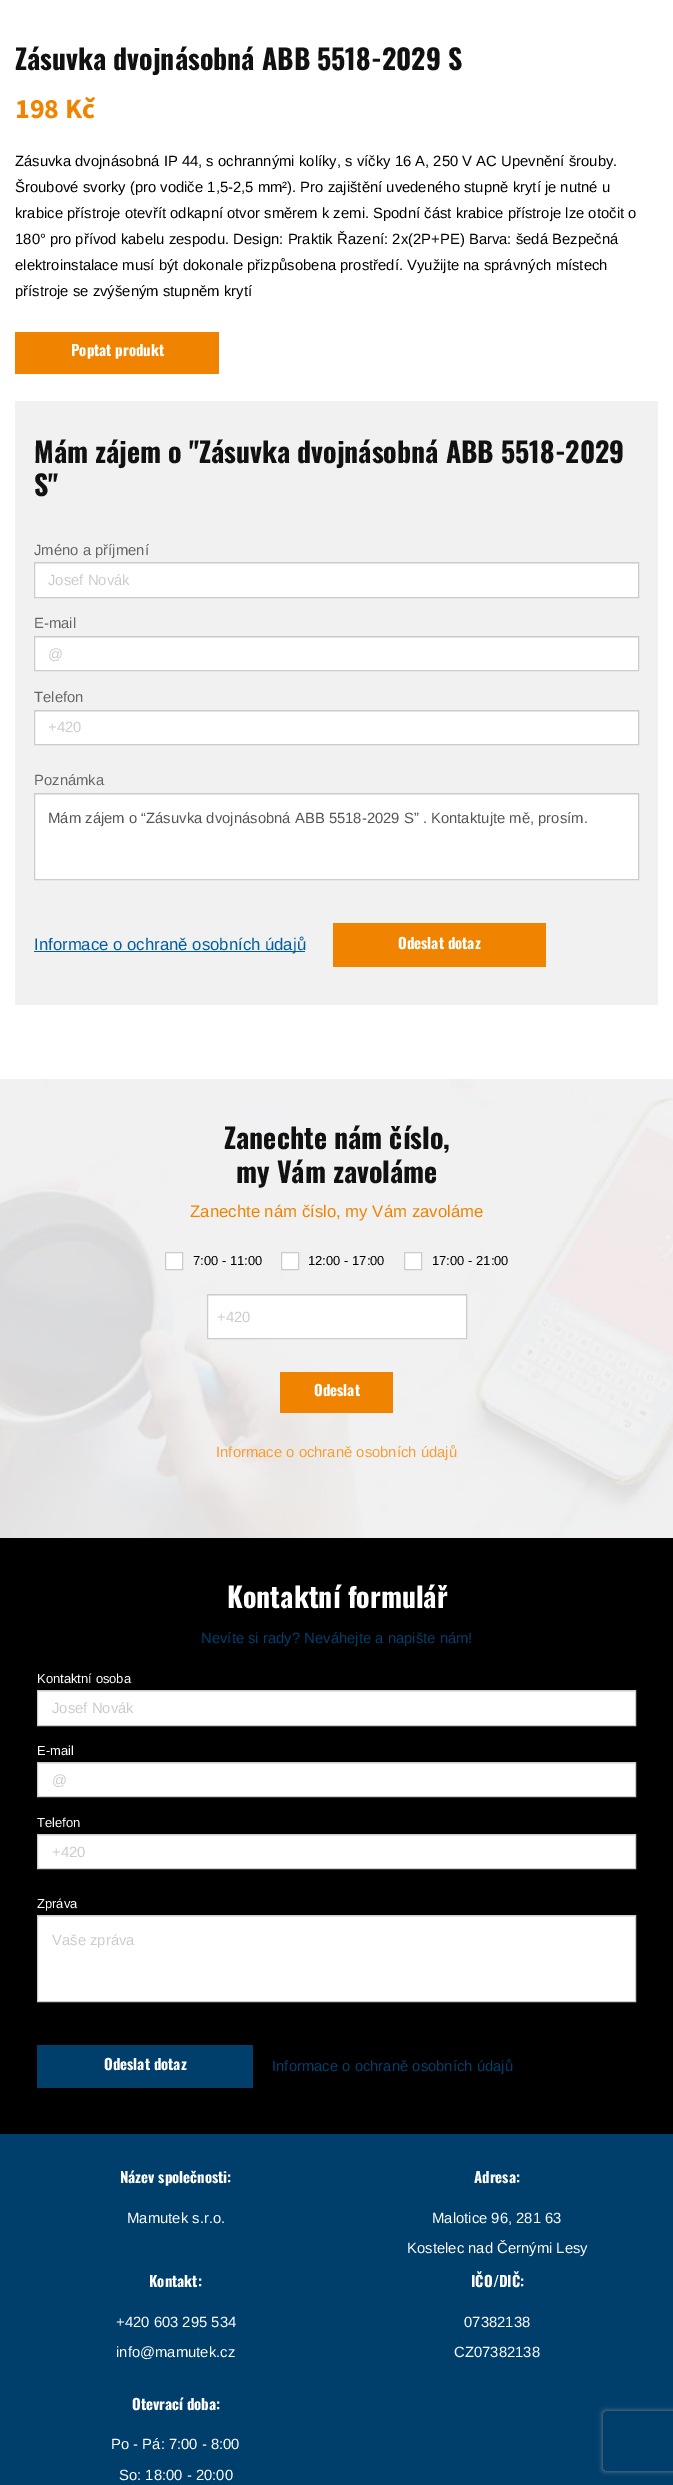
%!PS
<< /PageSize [673 2485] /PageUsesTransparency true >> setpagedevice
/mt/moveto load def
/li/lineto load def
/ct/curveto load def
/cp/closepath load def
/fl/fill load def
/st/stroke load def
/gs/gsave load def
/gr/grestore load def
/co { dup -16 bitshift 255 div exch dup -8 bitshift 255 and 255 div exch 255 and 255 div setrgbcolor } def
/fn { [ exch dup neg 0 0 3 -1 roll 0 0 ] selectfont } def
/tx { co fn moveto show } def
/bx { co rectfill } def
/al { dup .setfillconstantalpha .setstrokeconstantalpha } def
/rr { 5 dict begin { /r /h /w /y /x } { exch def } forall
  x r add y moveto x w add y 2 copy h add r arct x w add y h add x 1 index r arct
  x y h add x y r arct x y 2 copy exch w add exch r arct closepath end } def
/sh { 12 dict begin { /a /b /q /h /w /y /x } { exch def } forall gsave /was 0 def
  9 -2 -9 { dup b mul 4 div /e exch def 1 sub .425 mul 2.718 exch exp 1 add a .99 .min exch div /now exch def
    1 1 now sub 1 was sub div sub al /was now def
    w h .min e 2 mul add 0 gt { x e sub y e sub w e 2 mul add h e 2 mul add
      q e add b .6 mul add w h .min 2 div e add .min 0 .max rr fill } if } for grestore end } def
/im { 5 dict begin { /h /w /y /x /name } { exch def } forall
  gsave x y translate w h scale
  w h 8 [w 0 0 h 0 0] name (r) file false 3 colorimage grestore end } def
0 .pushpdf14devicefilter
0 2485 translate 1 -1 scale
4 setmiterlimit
0 0 673 2485 16#FFFFFF bx
15 332 204 42 16#F08300 bx
15 401 643 604 16#F1F1F1 bx
35 564 603 33 16#FFFFFF bx
35 563 603 1 16#ECECEC bx
16#CCCCCC co
34.5 562.5 604 35 rectstroke
35 638 603 32 16#FFFFFF bx
35 637 603 1 16#ECECEC bx
16#CCCCCC co
34.5 636.5 604 34 rectstroke
35 712 603 32 16#FFFFFF bx
35 711 603 1 16#ECECEC bx
16#CCCCCC co
34.5 710.5 604 34 rectstroke
35 795 603 84 16#FFFFFF bx
35 794 603 1 16#ECECEC bx
16#CCCCCC co
34.5 793.5 604 86 rectstroke
34 951 271 1 16#005DA0 bx
333 923 213 44 16#F08300 bx
0 2134 673 351 16#003E6B bx
gs
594 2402 mt 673 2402 li 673 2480 li 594 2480 li cp 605 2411 mt 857 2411 li 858 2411 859 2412 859 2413 ct 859 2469 li 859 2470 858 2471 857 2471 ct 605 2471 li 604 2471 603 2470 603 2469 ct 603 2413 li 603 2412 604 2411 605 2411 ct cp eoclip newpath
16#808080 co
603 2411 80 60 2 2.5 1 sh
gr
(media/1.raw) 0 1079 673 459 im
16#FFFFFF co
165.5 1252.5 mt 182.5 1252.5 li 182.5 1269.5 li 165.5 1269.5 li cp gs fl gr
16#CCCCCC co
st
16#FFFFFF co
281.5 1252.5 mt 298.5 1252.5 li 298.5 1269.5 li 281.5 1269.5 li cp gs fl gr
16#CCCCCC co
st
16#FFFFFF co
404.5 1252.5 mt 421.5 1252.5 li 421.5 1269.5 li 404.5 1269.5 li cp gs fl gr
16#CCCCCC co
st
208 1296 258 42 16#FFFFFF bx
208 1295 258 1 16#ECECEC bx
16#CCCCCC co
207.5 1294.5 259 44 rectstroke
280 1372 113 41 16#F08300 bx
0 1538 673 596 16#000000 bx
38 1692 597 33 16#FFFFFF bx
38 1691 597 1 16#ECECEC bx
16#CCCCCC co
37.5 1690.5 598 35 rectstroke
38 1764 597 32 16#FFFFFF bx
38 1763 597 1 16#ECECEC bx
16#CCCCCC co
37.5 1762.5 598 34 rectstroke
38 1836 597 32 16#FFFFFF bx
38 1835 597 1 16#ECECEC bx
16#CCCCCC co
37.5 1834.5 598 34 rectstroke
38 1917 597 84 16#FFFFFF bx
38 1916 597 1 16#ECECEC bx
16#CCCCCC co
37.5 1915.5 598 86 rectstroke
37 2045 216 43 16#003E6B bx
(Zásuvka dvojnásobná ABB 5518-2029 S) 15 70 /Oswald-Bold 27.9 16#111111 tx
(198 Kč) 15 118 /SourceSansPro-Bold 27.9 16#F08300 tx
(Zásuvka dvojnásobná IP 44, s ochrannými kolíky, s víčky 16 A, 250 V AC Upevnění šrouby.) 15 166 /LiberationSans-Regular 14.85 16#000000 tx
(Šroubové svorky \(pro vodiče 1,5-2,5 mm²\). Pro zajištění uvedeného stupně krytí je nutné u) 15 192 /LiberationSans-Regular 14.85 16#000000 tx
(krabice přístroje otevřít odkapní otvor směrem k zemi. Spodní část krabice přístroje lze otočit o) 15 218 /LiberationSans-Regular 14.85 16#000000 tx
(180° pro přívod kabelu zespodu. Design: Praktik Řazení: 2x\(2P+PE\) Barva: šedá Bezpečná) 15 244 /LiberationSans-Regular 14.85 16#000000 tx
(elektroinstalace musí být dokonale přizpůsobena prostředí. Využijte na správných místech) 15 270 /LiberationSans-Regular 14.85 16#000000 tx
(přístroje se zvýšeným stupněm krytí) 15 296 /LiberationSans-Regular 14.85 16#000000 tx
(Poptat produkt) 71 356 /Oswald-Bold 14.85 16#FFFFFF tx
(Mám zájem o "Zásuvka dvojnásobná ABB 5518-2029) 34 463 /Oswald-Bold 27.9 16#111111 tx
(S") 34 496 /Oswald-Bold 27.9 16#111111 tx
(Jméno a příjmení) 34 555 /LiberationSans-Regular 14.85 16#666666 tx
(Josef Novák) 48 585 /LiberationSans-Regular 14.85 16#CCCCCC tx
(E-mail) 34 628 /LiberationSans-Regular 14.85 16#666666 tx
(@) 48 659 /LiberationSans-Regular 14.85 16#CCCCCC tx
(Telefon) 34 702 /LiberationSans-Regular 14.85 16#666666 tx
(+420) 48 732 /LiberationSans-Regular 14.85 16#CCCCCC tx
(Poznámka) 34 785 /LiberationSans-Regular 14.85 16#666666 tx
(Mám zájem o “Zásuvka dvojnásobná ABB 5518-2029 S” . Kontaktujte mě, prosím.) 48 823 /LiberationSans-Regular 14.85 16#555555 tx
(Informace o ochraně osobních údajů) 34 950 /LiberationSans-Regular 16.75 16#005DA0 tx
(Odeslat dotaz) 398 949 /Oswald-Bold 14.85 16#FFFFFF tx
(Zanechte nám číslo,) 224 1149 /Oswald-Bold 27.9 16#111111 tx
(my Vám zavoláme) 236 1183 /Oswald-Bold 27.9 16#111111 tx
(Zanechte nám číslo, my Vám zavoláme) 190 1217 /LiberationSans-Regular 16.75 16#F08300 tx
(7:00 - 11:00) 193 1265 /LiberationSans-Regular 13 16#000000 tx
(12:00 - 17:00) 308 1265 /LiberationSans-Regular 13 16#000000 tx
(17:00 - 21:00) 432 1265 /LiberationSans-Regular 13 16#000000 tx
(+420) 217 1322 /LiberationSans-Regular 14.85 16#CCCCCC tx
(Odeslat) 314 1396 /Oswald-Bold 14.85 16#FFFFFF tx
(Informace o ochraně osobních údajů) 216 1457 /LiberationSans-Regular 14.85 16#F89D30 tx
(Kontaktní formulář) 227 1608 /Oswald-Bold 27.9 16#FFFFFF tx
(Nevíte si rady? Neváhejte a napište nám!) 201 1643 /LiberationSans-Regular 14.85 16#003E6B tx
(Kontaktní osoba) 37 1683 /LiberationSans-Regular 13 16#FFFFFF tx
(Josef Novák) 52 1713 /LiberationSans-Regular 14.85 16#CCCCCC tx
(E-mail) 37 1755 /LiberationSans-Regular 13 16#FFFFFF tx
(@) 52 1785 /LiberationSans-Regular 14.85 16#CCCCCC tx
(Telefon) 37 1827 /LiberationSans-Regular 13 16#FFFFFF tx
(+420) 52 1857 /LiberationSans-Regular 14.85 16#CCCCCC tx
(Zpráva) 37 1908 /LiberationSans-Regular 13 16#FFFFFF tx
(Vaše zpráva) 52 1945 /LiberationSans-Regular 14.85 16#CCCCCC tx
(Odeslat dotaz) 104 2070 /Oswald-Bold 14.85 16#FFFFFF tx
(Informace o ochraně osobních údajů) 272 2071 /LiberationSans-Regular 14.85 16#003E6B tx
(Název společnosti:) 120 2183 /Oswald-Bold 14.85 16#FFFFFF tx
(Mamutek s.r.o.) 127 2223 /LiberationSans-Regular 14.85 16#FFFFFF tx
(Adresa:) 474 2183 /Oswald-Bold 14.85 16#FFFFFF tx
(Malotice 96, 281 63) 432 2223 /LiberationSans-Regular 14.85 16#FFFFFF tx
(Kostelec nad Černými Lesy) 407 2253 /LiberationSans-Regular 14.85 16#FFFFFF tx
(Kontakt:) 149 2287 /Oswald-Bold 14.85 16#FFFFFF tx
(+420 603 295 534) 116 2327 /LiberationSans-Regular 14.85 16#FFFFFF tx
(info@mamutek.cz) 116 2357 /LiberationSans-Regular 14.85 16#FFFFFF tx
(IČO/DIČ:) 471 2287 /Oswald-Bold 14.85 16#FFFFFF tx
(07382138) 464 2327 /LiberationSans-Regular 14.85 16#FFFFFF tx
(CZ07382138) 454 2357 /LiberationSans-Regular 14.85 16#FFFFFF tx
(Otevrací doba:) 132 2410 /Oswald-Bold 14.85 16#FFFFFF tx
(Po - Pá: 7:00 - 8:00) 111 2449 /LiberationSans-Regular 14.85 16#FFFFFF tx
(So: 18:00 - 20:00) 119 2480 /LiberationSans-Regular 14.85 16#FFFFFF tx
.poppdf14devicefilter showpage
